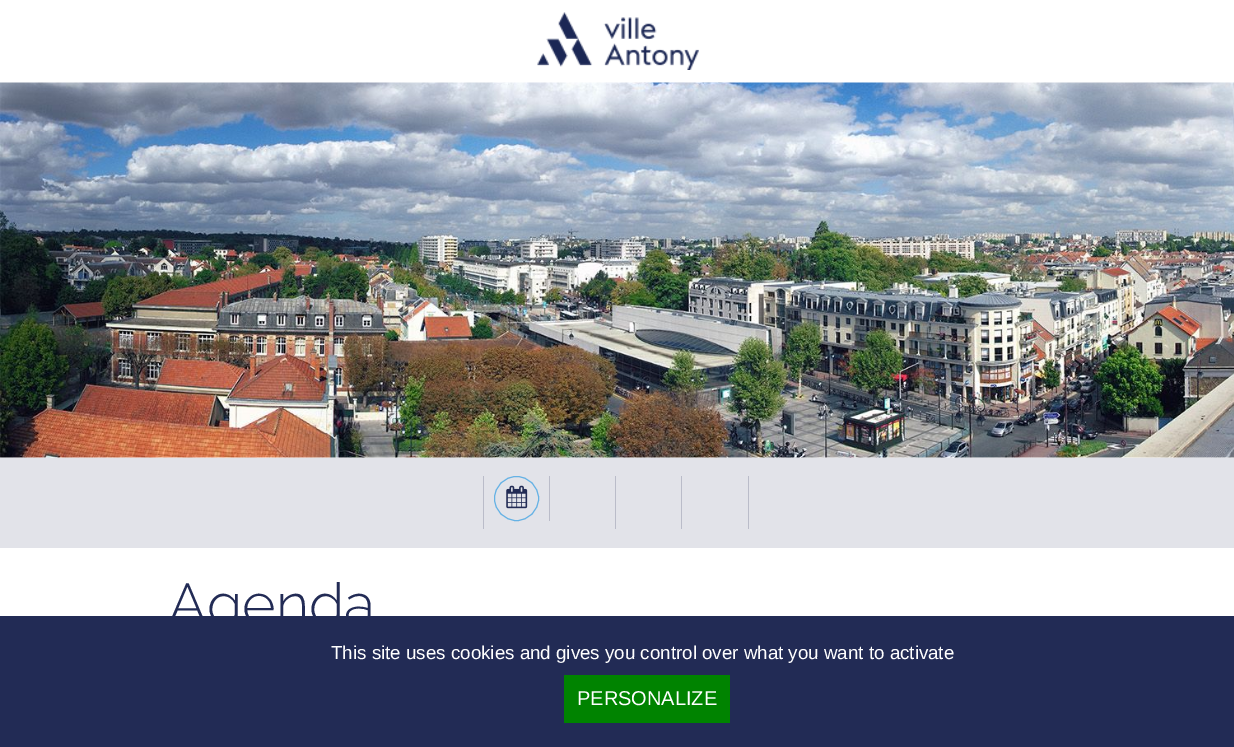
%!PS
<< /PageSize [1234 747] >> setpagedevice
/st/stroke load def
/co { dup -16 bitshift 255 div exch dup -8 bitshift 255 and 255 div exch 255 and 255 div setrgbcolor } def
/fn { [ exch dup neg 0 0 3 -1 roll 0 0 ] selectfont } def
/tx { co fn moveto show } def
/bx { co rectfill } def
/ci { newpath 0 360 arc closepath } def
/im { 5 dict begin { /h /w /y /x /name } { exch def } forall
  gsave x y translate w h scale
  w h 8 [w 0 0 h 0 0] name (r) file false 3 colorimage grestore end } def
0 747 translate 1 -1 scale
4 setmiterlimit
0 0 1234 747 16#FFFFFF bx
(media/1.raw) 537 12 162 58 im
(media/2.raw) 0 82 1234 376 im
0 458 1234 90 16#E2E3E9 bx
483 476 1 53 16#BABCC9 bx
549 476 1 45 16#BABCC9 bx
16#65B2E5 co
516.5 498.5 22 ci st
(media/3.raw) 506 485 22 24 im
615 476 1 53 16#BABCC9 bx
681 476 1 53 16#BABCC9 bx
748 476 1 53 16#BABCC9 bx
0 616 1234 131 16#222B55 bx
564 675 166 48 16#008300 bx
(Agenda) 168 624 /Raleway-Light 57.5 16#222B55 tx
(This site uses cookies and gives you control over what you want to activate) 331 659 /LiberationSans-Regular 18.75 16#FFFFFF tx
(PERSONALIZE) 577 705 /LiberationSans-Regular 20 16#FFFFFF tx
showpage
